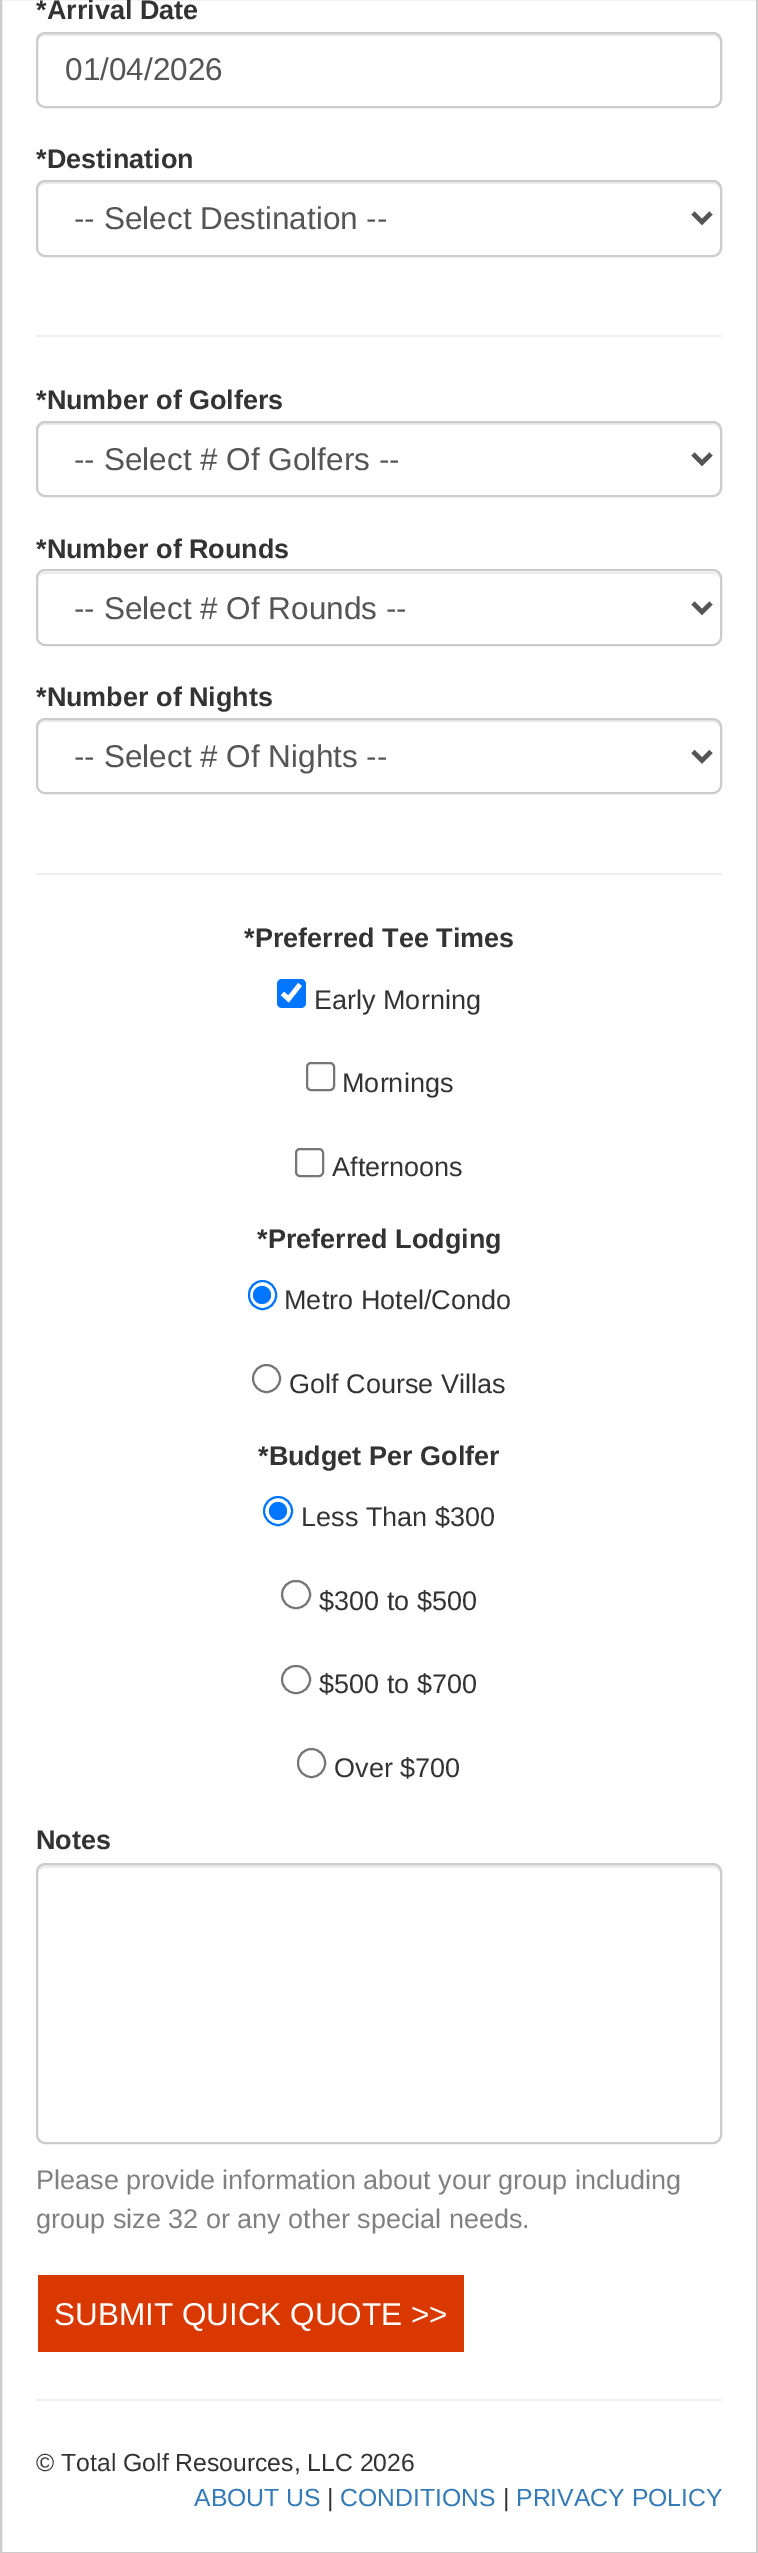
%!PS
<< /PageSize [758 2553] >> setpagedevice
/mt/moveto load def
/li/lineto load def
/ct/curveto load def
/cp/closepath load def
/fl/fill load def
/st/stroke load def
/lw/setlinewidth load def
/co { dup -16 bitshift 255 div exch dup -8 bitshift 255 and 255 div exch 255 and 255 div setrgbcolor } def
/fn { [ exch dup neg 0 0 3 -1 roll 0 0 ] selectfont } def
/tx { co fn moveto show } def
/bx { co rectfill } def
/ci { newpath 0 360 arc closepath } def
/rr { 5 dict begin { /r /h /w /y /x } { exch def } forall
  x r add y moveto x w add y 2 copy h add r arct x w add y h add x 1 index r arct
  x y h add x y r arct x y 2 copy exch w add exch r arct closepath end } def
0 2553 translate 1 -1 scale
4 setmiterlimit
0 0 758 2553 16#FFFFFF bx
16#CCCCCC co
2 lw
1 -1 756 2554 rectstroke
16#ECECEC co
45 36 mt 713 36 li 717 36 720 39 720 43 ct 720 41 li 720 37 717 34 713 34 ct 45 34 li 41 34 38 37 38 41 ct 38 43 li 38 39 41 36 45 36 ct cp fl
16#CCCCCC co
37 33 684 74 8 rr st
16#ECECEC co
45 184 mt 713 184 li 717 184 720 188 720 191 ct 720 189 li 720 185 717 182 713 182 ct 45 182 li 41 182 38 185 38 189 ct 38 191 li 38 188 41 184 45 184 ct cp fl
16#CCCCCC co
37 181 684 75 8 rr st
16#555555 co
4.5 lw
693 213 mt 702 222 li 711 213 li st
36 335 686 2 16#EEEEEE bx
16#ECECEC co
45 425 mt 713 425 li 717 425 720 428 720 432 ct 720 430 li 720 426 717 423 713 423 ct 45 423 li 41 423 38 426 38 430 ct 38 432 li 38 428 41 425 45 425 ct cp fl
16#CCCCCC co
2 lw
37 422 684 74 8 rr st
16#555555 co
4.5 lw
693 454 mt 702 463 li 711 454 li st
16#ECECEC co
45 574 mt 713 574 li 717 574 720 577 720 580 ct 720 576 718 572 713 572 ct 45 572 li 40 572 38 576 38 580 ct 38 577 41 574 45 574 ct cp fl
16#CCCCCC co
2 lw
37 570 684 75 8 rr st
16#555555 co
4.5 lw
693 603 mt 702 612 li 711 603 li st
16#ECECEC co
45 722 mt 713 722 li 717 722 720 725 720 729 ct 720 727 li 720 723 717 720 713 720 ct 45 720 li 41 720 38 723 38 727 ct 38 729 li 38 725 41 722 45 722 ct cp fl
16#CCCCCC co
2 lw
37 719 684 74 8 rr st
16#555555 co
4.5 lw
693 751.5 mt 702 760.5 li 711 751.5 li st
36 873 686 2 16#EEEEEE bx
16#0075FF co
277 979 29 29 5 rr fl
16#FFFFFF co
4.7 lw
282.5 993.5 mt 288.5 999 li 300 984.5 li st
16#767676 co
2 lw
307 1063 27 27 4 rr st
296 1149 27 27 4 rr st
16#0075FF co
249 1281 27 28 13.5 rr st
262 1295 9 ci fl
16#767676 co
266.5 1378.5 13.5 ci st
16#0075FF co
278 1511 14 ci st
278 1511 9 ci fl
16#767676 co
282 1581 28 27 13.5 rr st
282 1666 28 27 13.5 rr st
298 1749 27 28 13.5 rr st
16#ECECEC co
45 1868 mt 713 1868 li 717 1868 720 1871 720 1874 ct 720 1872 li 720 1868 717 1865 713 1865 ct 45 1865 li 41 1865 38 1868 38 1872 ct 38 1874 li 38 1871 41 1868 45 1868 ct cp fl
16#CCCCCC co
37 1864 684 279 8 rr st
38 2275 426 77 16#D93800 bx
36 2399 686 2 16#EEEEEE bx
(*Arrival Date) 36 19 /LiberationSans-Bold 27 16#333333 tx
(01/04/2026) 65 80 /LiberationSans-Regular 31.5 16#555555 tx
(*Destination) 36 168 /LiberationSans-Bold 27 16#333333 tx
(-- Select Destination --) 74 229 /LiberationSans-Regular 31.5 16#555555 tx
(*Number of Golfers) 36 409 /LiberationSans-Bold 27 16#333333 tx
(-- Select # Of Golfers --) 74 470 /LiberationSans-Regular 31.5 16#555555 tx
(*Number of Rounds) 36 558 /LiberationSans-Bold 27 16#333333 tx
(-- Select # Of Rounds --) 74 619 /LiberationSans-Regular 31.5 16#555555 tx
(*Number of Nights) 36 706 /LiberationSans-Bold 27 16#333333 tx
(-- Select # Of Nights --) 74 767 /LiberationSans-Regular 31.5 16#555555 tx
(*Preferred Tee Times) 244 947 /LiberationSans-Bold 27 16#333333 tx
(Early Morning) 314 1009 /LiberationSans-Regular 27 16#333333 tx
(Mornings) 342 1092 /LiberationSans-Regular 27 16#333333 tx
(Afternoons) 332 1176 /LiberationSans-Regular 27 16#333333 tx
(*Preferred Lodging) 257 1248 /LiberationSans-Bold 27 16#333333 tx
(Metro Hotel/Condo) 284 1309 /LiberationSans-Regular 27 16#333333 tx
(Golf Course Villas) 289 1393 /LiberationSans-Regular 27 16#333333 tx
(*Budget Per Golfer) 258 1465 /LiberationSans-Bold 27 16#333333 tx
(Less Than $300) 301 1526 /LiberationSans-Regular 27 16#333333 tx
($300 to $500) 319 1610 /LiberationSans-Regular 27 16#333333 tx
($500 to $700) 319 1693 /LiberationSans-Regular 27 16#333333 tx
(Over $700) 334 1777 /LiberationSans-Regular 27 16#333333 tx
(Notes) 36 1849 /LiberationSans-Bold 27 16#333333 tx
(Please provide information about your group including) 36 2189 /LiberationSans-Regular 27 16#808080 tx
(group size 32 or any other special needs.) 36 2228 /LiberationSans-Regular 27 16#808080 tx
(SUBMIT QUICK QUOTE >>) 54 2325 /LiberationSans-Regular 31.5 16#FFFFFF tx
(© Total Golf Resources, LLC 2026) 36 2471 /LiberationSans-Regular 24.75 16#333333 tx
(ABOUT US) 194 2506 /LiberationSans-Regular 24.75 16#337AB7 tx
(|) 327 2506 /LiberationSans-Regular 24.75 16#333333 tx
(CONDITIONS) 340 2506 /LiberationSans-Regular 24.75 16#337AB7 tx
(|) 503 2506 /LiberationSans-Regular 24.75 16#333333 tx
(PRIVACY POLICY) 516 2506 /LiberationSans-Regular 24.75 16#337AB7 tx
showpage
